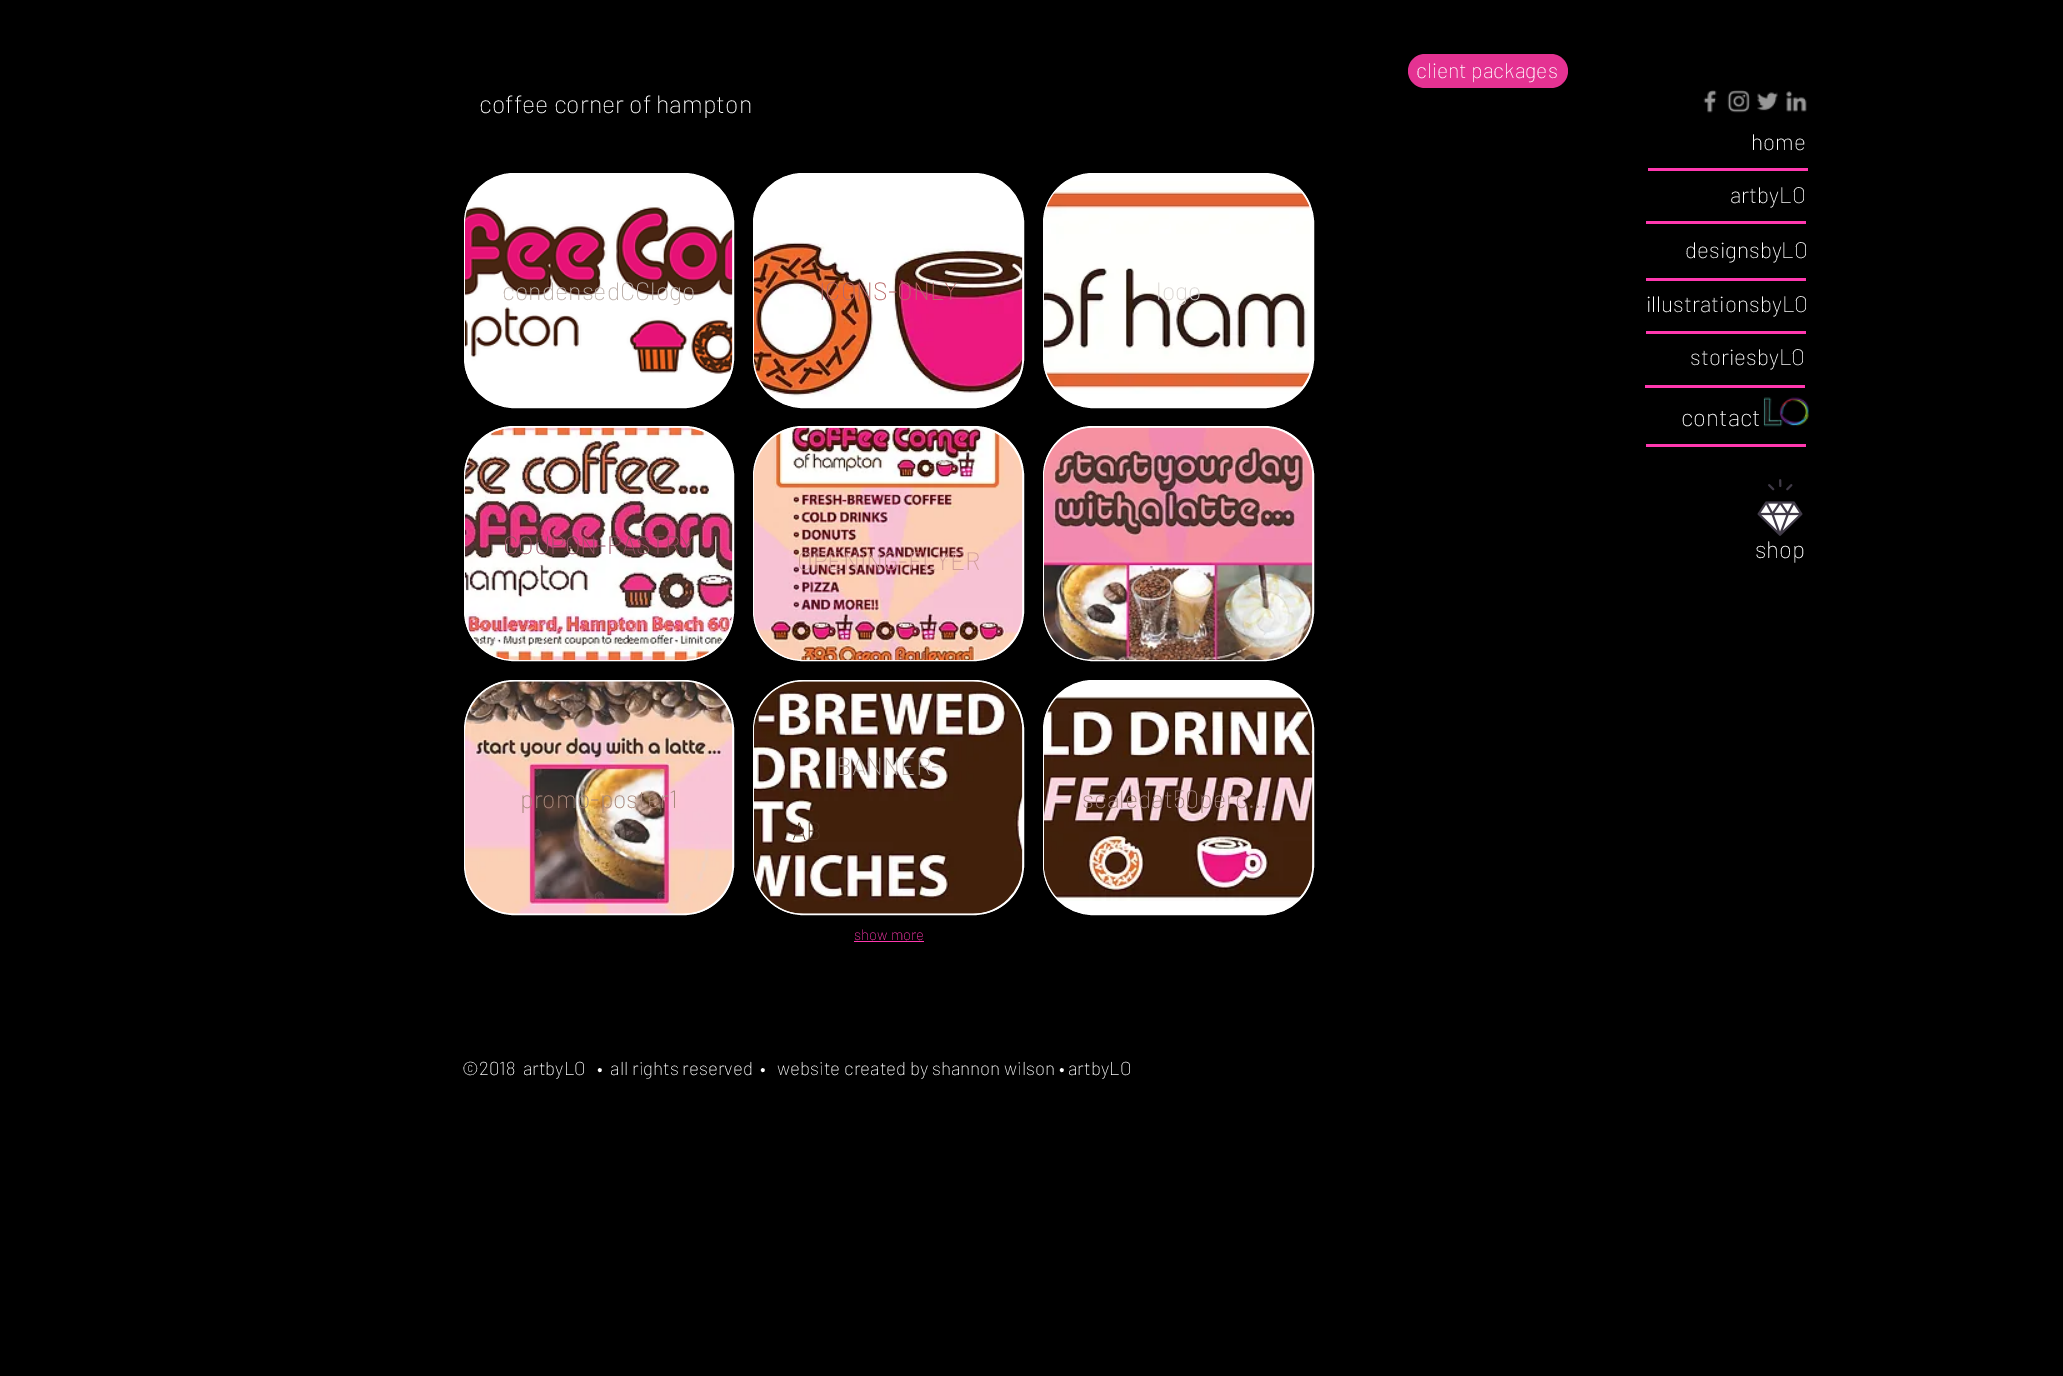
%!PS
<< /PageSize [2063 1376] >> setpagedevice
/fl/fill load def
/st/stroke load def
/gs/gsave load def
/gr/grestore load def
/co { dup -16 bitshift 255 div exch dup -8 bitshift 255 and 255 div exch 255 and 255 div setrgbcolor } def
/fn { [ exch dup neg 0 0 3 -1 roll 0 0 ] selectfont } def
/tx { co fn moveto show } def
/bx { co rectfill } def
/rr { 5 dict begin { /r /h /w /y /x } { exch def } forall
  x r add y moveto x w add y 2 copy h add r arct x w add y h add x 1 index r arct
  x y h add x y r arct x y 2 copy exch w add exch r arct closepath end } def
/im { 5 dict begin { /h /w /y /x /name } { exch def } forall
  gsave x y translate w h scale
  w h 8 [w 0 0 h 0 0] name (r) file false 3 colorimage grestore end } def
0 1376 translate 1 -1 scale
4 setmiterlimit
0 0 2063 1376 16#000000 bx
16#E43292 co
1408 54 160 34 17 rr fl
16#FFFFFF co
464.5 173.5 269 234 49.5 rr gs fl gr
st
(media/1.raw) 465 205 268 169 im
753.5 173.5 270 234 49.5 rr gs fl gr
st
(media/2.raw) 754 242 269 155 im
1043.5 173.5 270 234 49.5 rr gs fl gr
st
(media/3.raw) 1044 181 266 213 im
464.5 426.5 269 234 49.5 rr gs fl gr
st
(media/4.raw) 465 427 268 233 im
1043.5 426.5 270 234 49.5 rr gs fl gr
st
(media/5.raw) 1044 427 269 233 im
753.5 426.5 270 234 49.5 rr gs fl gr
st
(media/6.raw) 754 427 269 233 im
464.5 680.5 269 234 49.5 rr gs fl gr
st
(media/7.raw) 465 681 268 233 im
753.5 680.5 270 234 49.5 rr gs fl gr
st
(media/8.raw) 754 681 269 233 im
1043.5 680.5 270 234 49.5 rr gs fl gr
st
(media/9.raw) 1044 696 269 205 im
854 941 70 1 16#FF38AF bx
(media/10.raw) 1703 90 14 23 im
(media/11.raw) 1727 90 23 23 im
(media/12.raw) 1757 92 21 19 im
(media/13.raw) 1786 91 21 21 im
1648 168 160 3 16#FF38AF bx
1646 221 160 3 16#FF38AF bx
1646 278 160 3 16#FF38AF bx
1646 331 160 3 16#FF38AF bx
1645 385 160 3 16#FF38AF bx
(media/14.raw) 1763 397 46 30 im
1646 444 160 3 16#FF38AF bx
(media/15.raw) 1757 479 46 57 im
(client packages) 1416 78 /Barlow-ExtraLight 21.25 16#FFFFFF tx
(condensedCClogo) 502 300 /Barlow-ExtraLight 25 16#BEB2AC tx
(ICONS-ONLY) 819 300 /Barlow-ExtraLight 25 16#B86868 tx
(logo) 1156 300 /Barlow-ExtraLight 25 16#DBD7D4 tx
(COUPON-PASTRY) 503 554 /Barlow-ExtraLight 25 16#975266 tx
(OPENING-FLYER) 797 570 /Barlow-ExtraLight 25 16#D09B97 tx
(promo-poster1) 520 808 /Barlow-ExtraLight 25 16#A8887B tx
(BANNER-) 836 775 /Barlow-ExtraLight 25 16#B5A9A2 tx
(AB) 792 840 /Barlow-ExtraLight 25 16#4E301C tx
(scaledat50perc…) 1082 808 /Barlow-ExtraLight 25 16#A0807C tx
(show more) 854 940 /Barlow-ExtraLight 15 16#FF38AF tx
(home) 1751 150 /Barlow-ExtraLight 22.5 16#FFFFFF tx
(artbyLO) 1730 203 /Barlow-ExtraLight 22.5 16#FFFFFF tx
(designsbyLO) 1685 258 /Barlow-ExtraLight 22.5 16#FFFFFF tx
(illustrationsbyLO) 1646 312 /Barlow-ExtraLight 22.5 16#FFFFFF tx
(storiesbyLO) 1690 365 /Barlow-ExtraLight 22.5 16#FFFFFF tx
(contact) 1681 426 /Barlow-ExtraLight 24 16#FFFFFF tx
(shop) 1755 558 /Barlow-ExtraLight 24 16#FFFFFF tx
(coffee corner of hampton) 479 113 /Barlow-ExtraLight 25 16#FFFFFF tx
(©2018  artbyLO   •  all rights reserved  •   website created by shannon wilson • artbyLO) 462 1075 /Barlow-ExtraLight 18.75 16#FFFFFF tx
showpage
